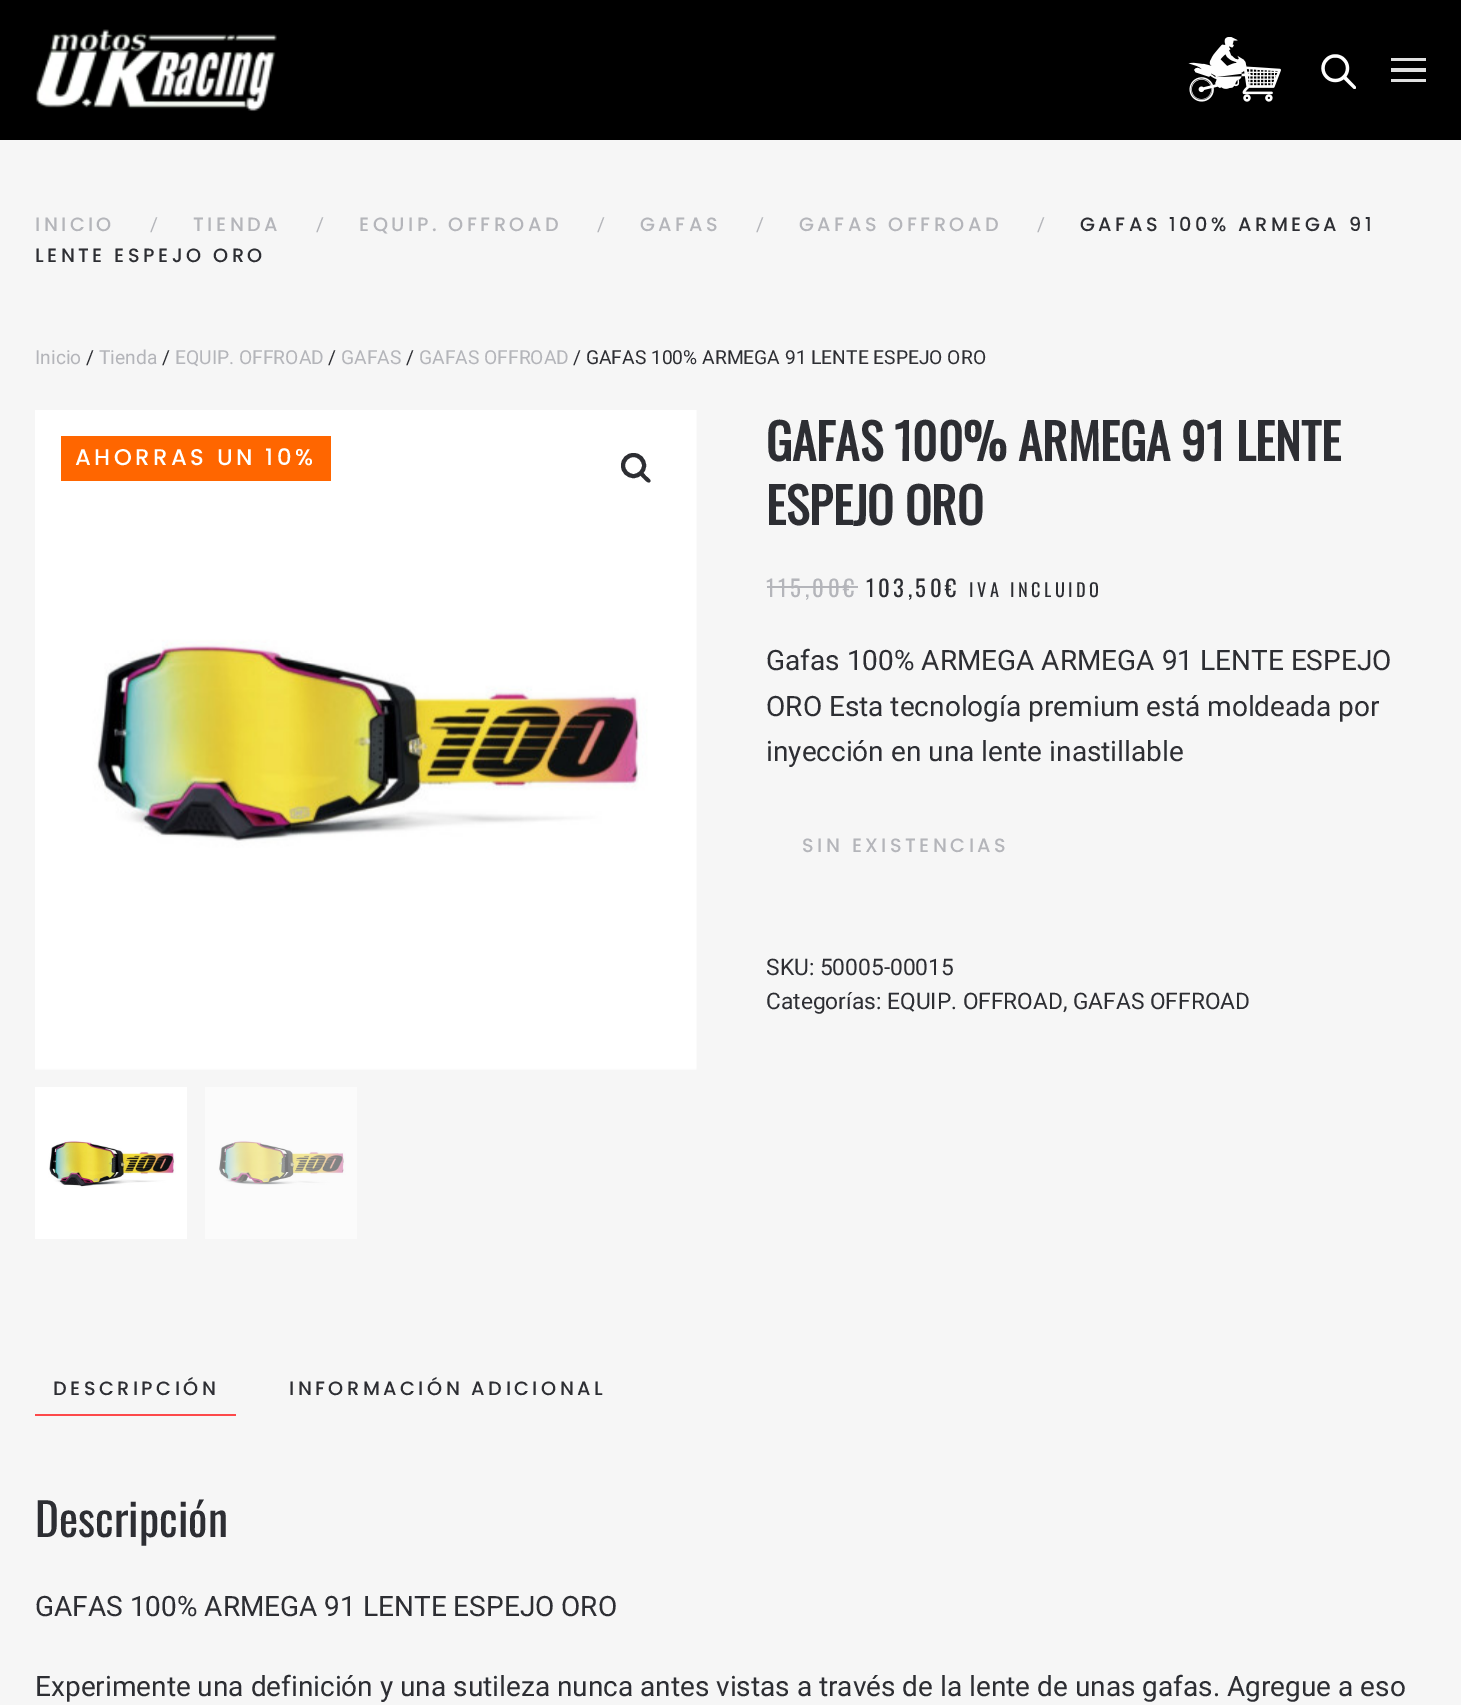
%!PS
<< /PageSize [1461 1705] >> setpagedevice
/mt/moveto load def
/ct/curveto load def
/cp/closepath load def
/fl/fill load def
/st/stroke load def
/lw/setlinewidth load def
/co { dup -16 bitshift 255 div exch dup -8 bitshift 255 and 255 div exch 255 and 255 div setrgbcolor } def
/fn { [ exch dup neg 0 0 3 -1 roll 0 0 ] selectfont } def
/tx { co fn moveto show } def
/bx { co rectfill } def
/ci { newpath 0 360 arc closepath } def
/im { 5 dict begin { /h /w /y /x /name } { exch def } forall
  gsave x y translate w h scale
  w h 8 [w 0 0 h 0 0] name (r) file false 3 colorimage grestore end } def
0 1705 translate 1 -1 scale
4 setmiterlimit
0 0 1461 1705 16#F6F6F6 bx
0 0 1461 140 16#000000 bx
(media/1.raw) 35 29 242 83 im
(media/2.raw) 1188 37 93 65 im
(media/3.raw) 1321 54 35 35 im
1391 58 35 3 16#E0E0E0 bx
1391 68 35 4 16#E0E0E0 bx
1391 79 35 3 16#E0E0E0 bx
(media/4.raw) 35 410 662 660 im
16#2D2E33 co
4 lw
633.5 465.5 10.5 ci st
640 472 mt 642 470 645 475 646 476 ct 647 477 652 480 650 482 ct 648 484 644.5 479.5 643.5 478.5 ct 642.5 477.5 638 474 640 472 ct cp fl
(media/5.raw) 35 1087 152 152 im
(media/6.raw) 205 1087 152 152 im
767 586 91 2 16#B4B5BA bx
61 436 270 45 16#FF6600 bx
35 1414 201 2 16#FD494A bx
(/) 1037 231 /Roboto-Regular 19.25 16#B4B5BA tx
/Poppins-Medium 19.25 fn
16#2D2E33 co
1080 231 mt 3.5 0 (GAFAS 100% ARMEGA 91) ashow
35 262 mt 3.5 0 (LENTE ESPEJO ORO) ashow
16#B4B5BA co
35 231 mt 3.5 0 (INICIO) ashow
(/) 150 231 /Roboto-Regular 19.25 16#B4B5BA tx
/Poppins-Medium 19.25 fn
193 231 mt 3.5 0 (TIENDA) ashow
(/) 316 231 /Roboto-Regular 19.25 16#B4B5BA tx
/Poppins-Medium 19.25 fn
359 231 mt 3.5 0 (EQUIP. OFFROAD) ashow
(/) 597 231 /Roboto-Regular 19.25 16#B4B5BA tx
/Poppins-Medium 19.25 fn
640 231 mt 3.5 0 (GAFAS) ashow
(/) 756 231 /Roboto-Regular 19.25 16#B4B5BA tx
/Poppins-Medium 19.25 fn
799 231 mt 3.5 0 (GAFAS OFFROAD) ashow
(Inicio) 35 364 /Roboto-Regular 19.25 16#B4B5BA tx
(/) 86 364 /Roboto-Regular 19.25 16#2D2E33 tx
(Tienda) 99 364 /Roboto-Regular 19.25 16#B4B5BA tx
(/) 162 364 /Roboto-Regular 19.25 16#2D2E33 tx
(EQUIP. OFFROAD) 175 364 /Roboto-Regular 19.25 16#B4B5BA tx
(/) 328 364 /Roboto-Regular 19.25 16#2D2E33 tx
(GAFAS) 341 364 /Roboto-Regular 19.25 16#B4B5BA tx
(/) 406 364 /Roboto-Regular 19.25 16#2D2E33 tx
(GAFAS OFFROAD) 419 364 /Roboto-Regular 19.25 16#B4B5BA tx
(/ GAFAS 100% ARMEGA 91 LENTE ESPEJO ORO) 573 364 /Roboto-Regular 19.25 16#2D2E33 tx
(GAFAS 100% ARMEGA 91 LENTE) 766 461 /Oswald-Bold 49 16#2D2E33 tx
(ESPEJO ORO) 766 525 /Oswald-Bold 49 16#2D2E33 tx
/Oswald-Regular 22.75 fn
16#B4B5BA co
766 597 mt 3.5 0 (115,00€) ashow
16#2D2E33 co
866 597 mt 3.5 0 (103,50€) ashow
/Oswald-Regular 18.25 fn
969 597 mt 3.5 0 (IVA INCLUIDO) ashow
(Gafas 100% ARMEGA ARMEGA 91 LENTE ESPEJO) 766 670 /Roboto-Regular 28 16#2D2E33 tx
(ORO Esta tecnología premium está moldeada por) 766 716 /Roboto-Regular 28 16#2D2E33 tx
(inyección en una lente inastillable) 766 761 /Roboto-Regular 28 16#2D2E33 tx
/Poppins-Medium 19.25 fn
16#B4B5BA co
802 852 mt 3.5 0 (SIN EXISTENCIAS) ashow
(SKU: 50005-00015) 766 975 /Roboto-Regular 22.75 16#2D2E33 tx
(Categorías: EQUIP. OFFROAD, GAFAS OFFROAD) 766 1009 /Roboto-Regular 22.75 16#2D2E33 tx
/Poppins-Medium 22.75 fn
16#FFFFFF co
75 465 mt 3.5 0 (AHORRAS UN 10%) ashow
/Poppins-Medium 19.25 fn
16#2D2E33 co
53 1395 mt 3.5 0 (DESCRIPCIÓN) ashow
289 1395 mt 3.5 0 (INFORMACIÓN ADICIONAL) ashow
(Descripción) 35 1537 /Oswald-Regular 45.5 16#2D2E33 tx
(GAFAS 100% ARMEGA 91 LENTE ESPEJO ORO) 35 1616 /Roboto-Regular 28 16#2D2E33 tx
(Experimente una definición y una sutileza nunca antes vistas a través de la lente de unas gafas. Agregue a eso) 35 1696 /Roboto-Regular 28 16#2D2E33 tx
showpage
